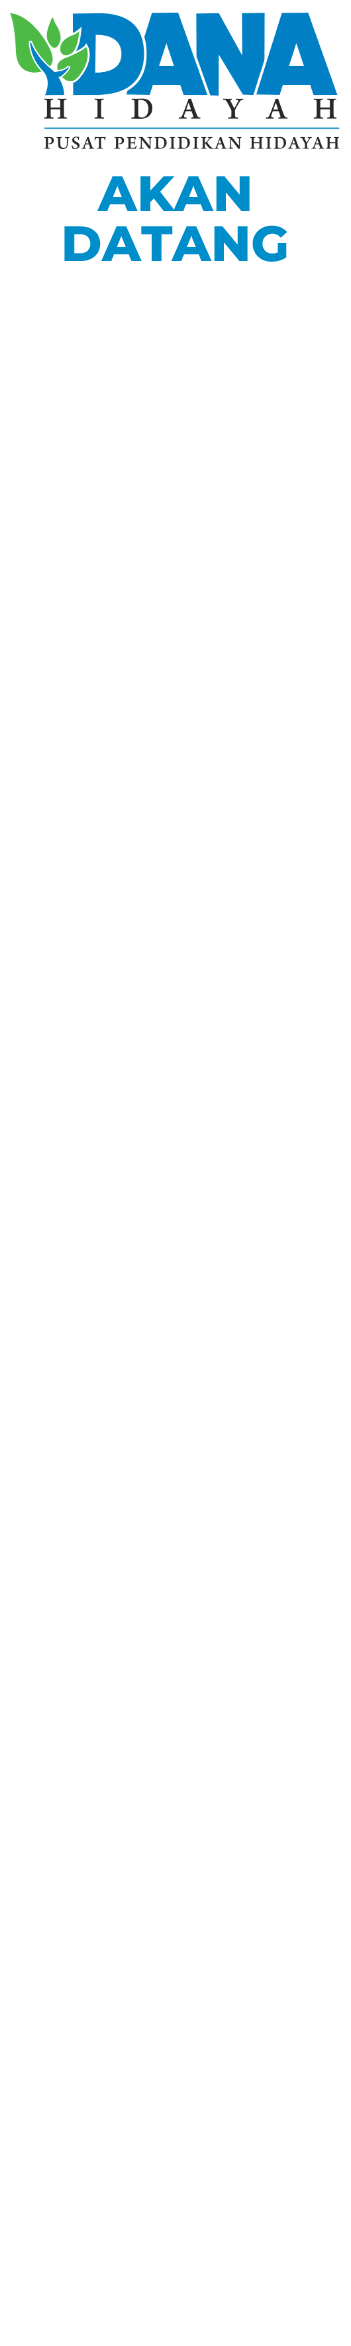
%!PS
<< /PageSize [351 2346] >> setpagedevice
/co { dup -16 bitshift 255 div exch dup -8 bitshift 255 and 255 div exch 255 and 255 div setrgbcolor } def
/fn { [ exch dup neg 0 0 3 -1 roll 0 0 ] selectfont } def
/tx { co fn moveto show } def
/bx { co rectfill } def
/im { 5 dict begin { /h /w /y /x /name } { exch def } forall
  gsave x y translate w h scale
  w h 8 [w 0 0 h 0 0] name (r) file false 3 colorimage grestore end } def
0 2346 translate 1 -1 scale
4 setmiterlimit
0 0 351 2346 16#FFFFFF bx
(media/1.raw) 10 12 330 137 im
(AKAN) 98 211 /Montserrat-ExtraBold 49.5 16#008ECB tx
(DATANG) 61 261 /Montserrat-ExtraBold 49.5 16#008ECB tx
showpage
